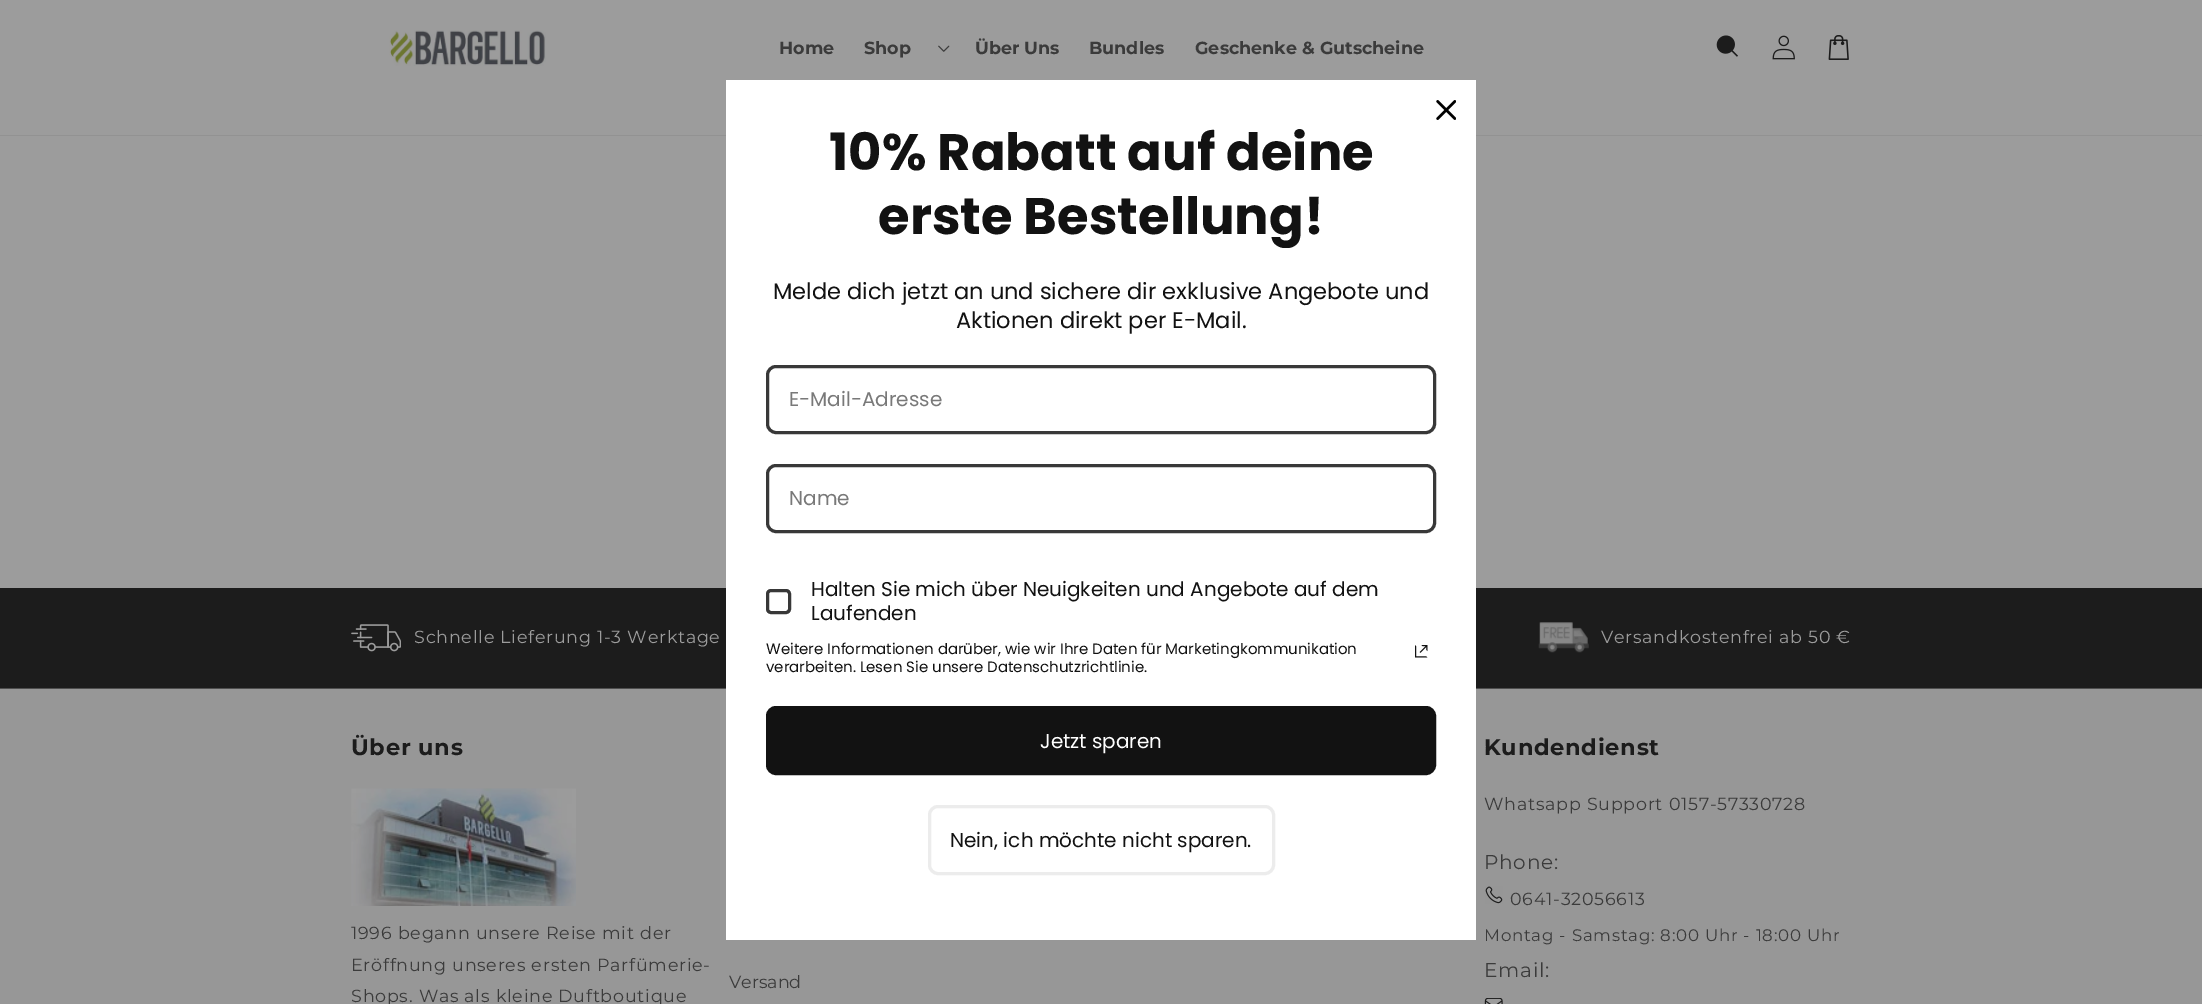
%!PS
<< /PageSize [2202 1004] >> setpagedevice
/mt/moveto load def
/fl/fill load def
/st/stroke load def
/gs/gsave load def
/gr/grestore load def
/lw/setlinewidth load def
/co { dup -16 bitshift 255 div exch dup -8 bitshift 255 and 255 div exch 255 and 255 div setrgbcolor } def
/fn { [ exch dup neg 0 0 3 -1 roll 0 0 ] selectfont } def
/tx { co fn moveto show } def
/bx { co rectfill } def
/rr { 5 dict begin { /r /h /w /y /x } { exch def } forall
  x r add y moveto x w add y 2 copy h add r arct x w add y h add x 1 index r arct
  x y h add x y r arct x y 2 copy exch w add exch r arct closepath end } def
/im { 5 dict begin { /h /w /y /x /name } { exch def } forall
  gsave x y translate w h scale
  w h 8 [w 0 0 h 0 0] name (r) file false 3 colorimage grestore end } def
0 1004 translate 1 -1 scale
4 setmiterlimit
0 0 2202 1004 16#9C9C9C bx
0 135 2202 1 16#929292 bx
(media/1.raw) 389 30 157 36 im
(media/2.raw) 938 45 12 7 im
(media/3.raw) 1716 35 22 22 im
(media/4.raw) 1772 35 23 25 im
(media/5.raw) 1828 35 21 25 im
0 588 2202 100 16#1C1C1C bx
0 688 2202 1 16#4F4F4F bx
0 689 2202 315 16#979797 bx
726 80 750 860 16#FFFFFF bx
(media/6.raw) 1436 100 20 20 im
16#383838 co
3 lw
767.5 366.5 667 66 8.5 rr st
767.5 465.5 667 66 8.5 rr st
767.5 590.5 22 22 3.5 rr st
(media/7.raw) 1415 645 13 13 im
16#121212 co
767.5 707.5 667 66 8.5 rr gs fl gr
st
16#ECECEC co
929.5 806.5 344 67 8.5 rr st
(media/8.raw) 351 624 50 28 im
(media/9.raw) 1538 622 51 31 im
(media/10.raw) 351 788 225 118 im
(media/11.raw) 1485 886 18 18 im
(media/12.raw) 1484 998 19 6 im
(Home) 779 54 /Montserrat-Bold 17.5 16#3B3B3B tx
(Shop) 864 54 /Montserrat-Bold 17.5 16#3B3B3B tx
(Über Uns) 975 54 /Montserrat-Bold 17.5 16#3B3B3B tx
(Bundles) 1089 54 /Montserrat-Bold 17.5 16#3B3B3B tx
(Geschenke & Gutscheine) 1195 54 /Montserrat-Bold 17.5 16#3B3B3B tx
(10% Rabatt auf deine) 829 170 /Poppins-Bold 51.25 16#121212 tx
(erste Bestellung!) 878 234 /Poppins-Bold 51.25 16#121212 tx
(Melde dich jetzt an und sichere dir exklusive Angebote und) 773 299 /Poppins-Regular 22.5 16#121212 tx
(Aktionen direkt per E-Mail.) 956 328 /Poppins-Regular 22.5 16#121212 tx
(E-Mail-Adresse) 789 406 /Poppins-Regular 20 16#797979 tx
(Name) 789 505 /Poppins-Regular 20 16#797979 tx
(Halten Sie mich über Neuigkeiten und Angebote auf dem) 811 596 /Poppins-Regular 20 16#121212 tx
(Laufenden) 811 620 /Poppins-Regular 20 16#121212 tx
(Weitere Informationen darüber, wie wir Ihre Daten für Marketingkommunikation) 766 654 /Poppins-Regular 15 16#121212 tx
(verarbeiten. Lesen Sie unsere Datenschutzrichtlinie.) 766 672 /Poppins-Regular 15 16#121212 tx
(Jetzt sparen) 1040 748 /Poppins-Regular 20 16#FFFFFF tx
(Nein, ich möchte nicht sparen.) 950 847 /Poppins-Regular 20 16#121212 tx
/Montserrat-Regular 17.5 fn
16#9C9C9C co
414 643 mt .75 0 (Schnelle Lieferung 1-3 Werktage) ashow
1601 643 mt .75 0 (Versandkostenfrei ab 50 €) ashow
/Montserrat-Bold 22.5 fn
16#1C1C1C co
351 755 mt .75 0 (Über uns) ashow
/Montserrat-Regular 17.5 fn
16#3B3B3B co
351 939 mt .75 0 (1996 begann unsere Reise mit der) ashow
351 971 mt .75 0 (Eröffnung unseres ersten Parfümerie-) ashow
351 1002 mt .75 0 (Shops. Was als kleine Duftboutique) ashow
/Montserrat-Bold 22.5 fn
16#1C1C1C co
1484 755 mt .75 0 (Kundendienst) ashow
/Montserrat-Regular 17.5 fn
16#3B3B3B co
1484 810 mt .75 0 (Whatsapp Support 0157-57330728) ashow
/Montserrat-Regular 20 fn
1484 869 mt .75 0 (Phone:) ashow
/Montserrat-Regular 17.5 fn
1510 905 mt .75 0 (0641-32056613) ashow
/Montserrat-Regular 16.7 fn
1484 941 mt .75 0 (Montag - Samstag: 8:00 Uhr - 18:00 Uhr) ashow
/Montserrat-Regular 20 fn
1484 977 mt .75 0 (Email:) ashow
(Versand) 729 988 /Montserrat-Regular 17.5 16#3B3B3B tx
showpage
